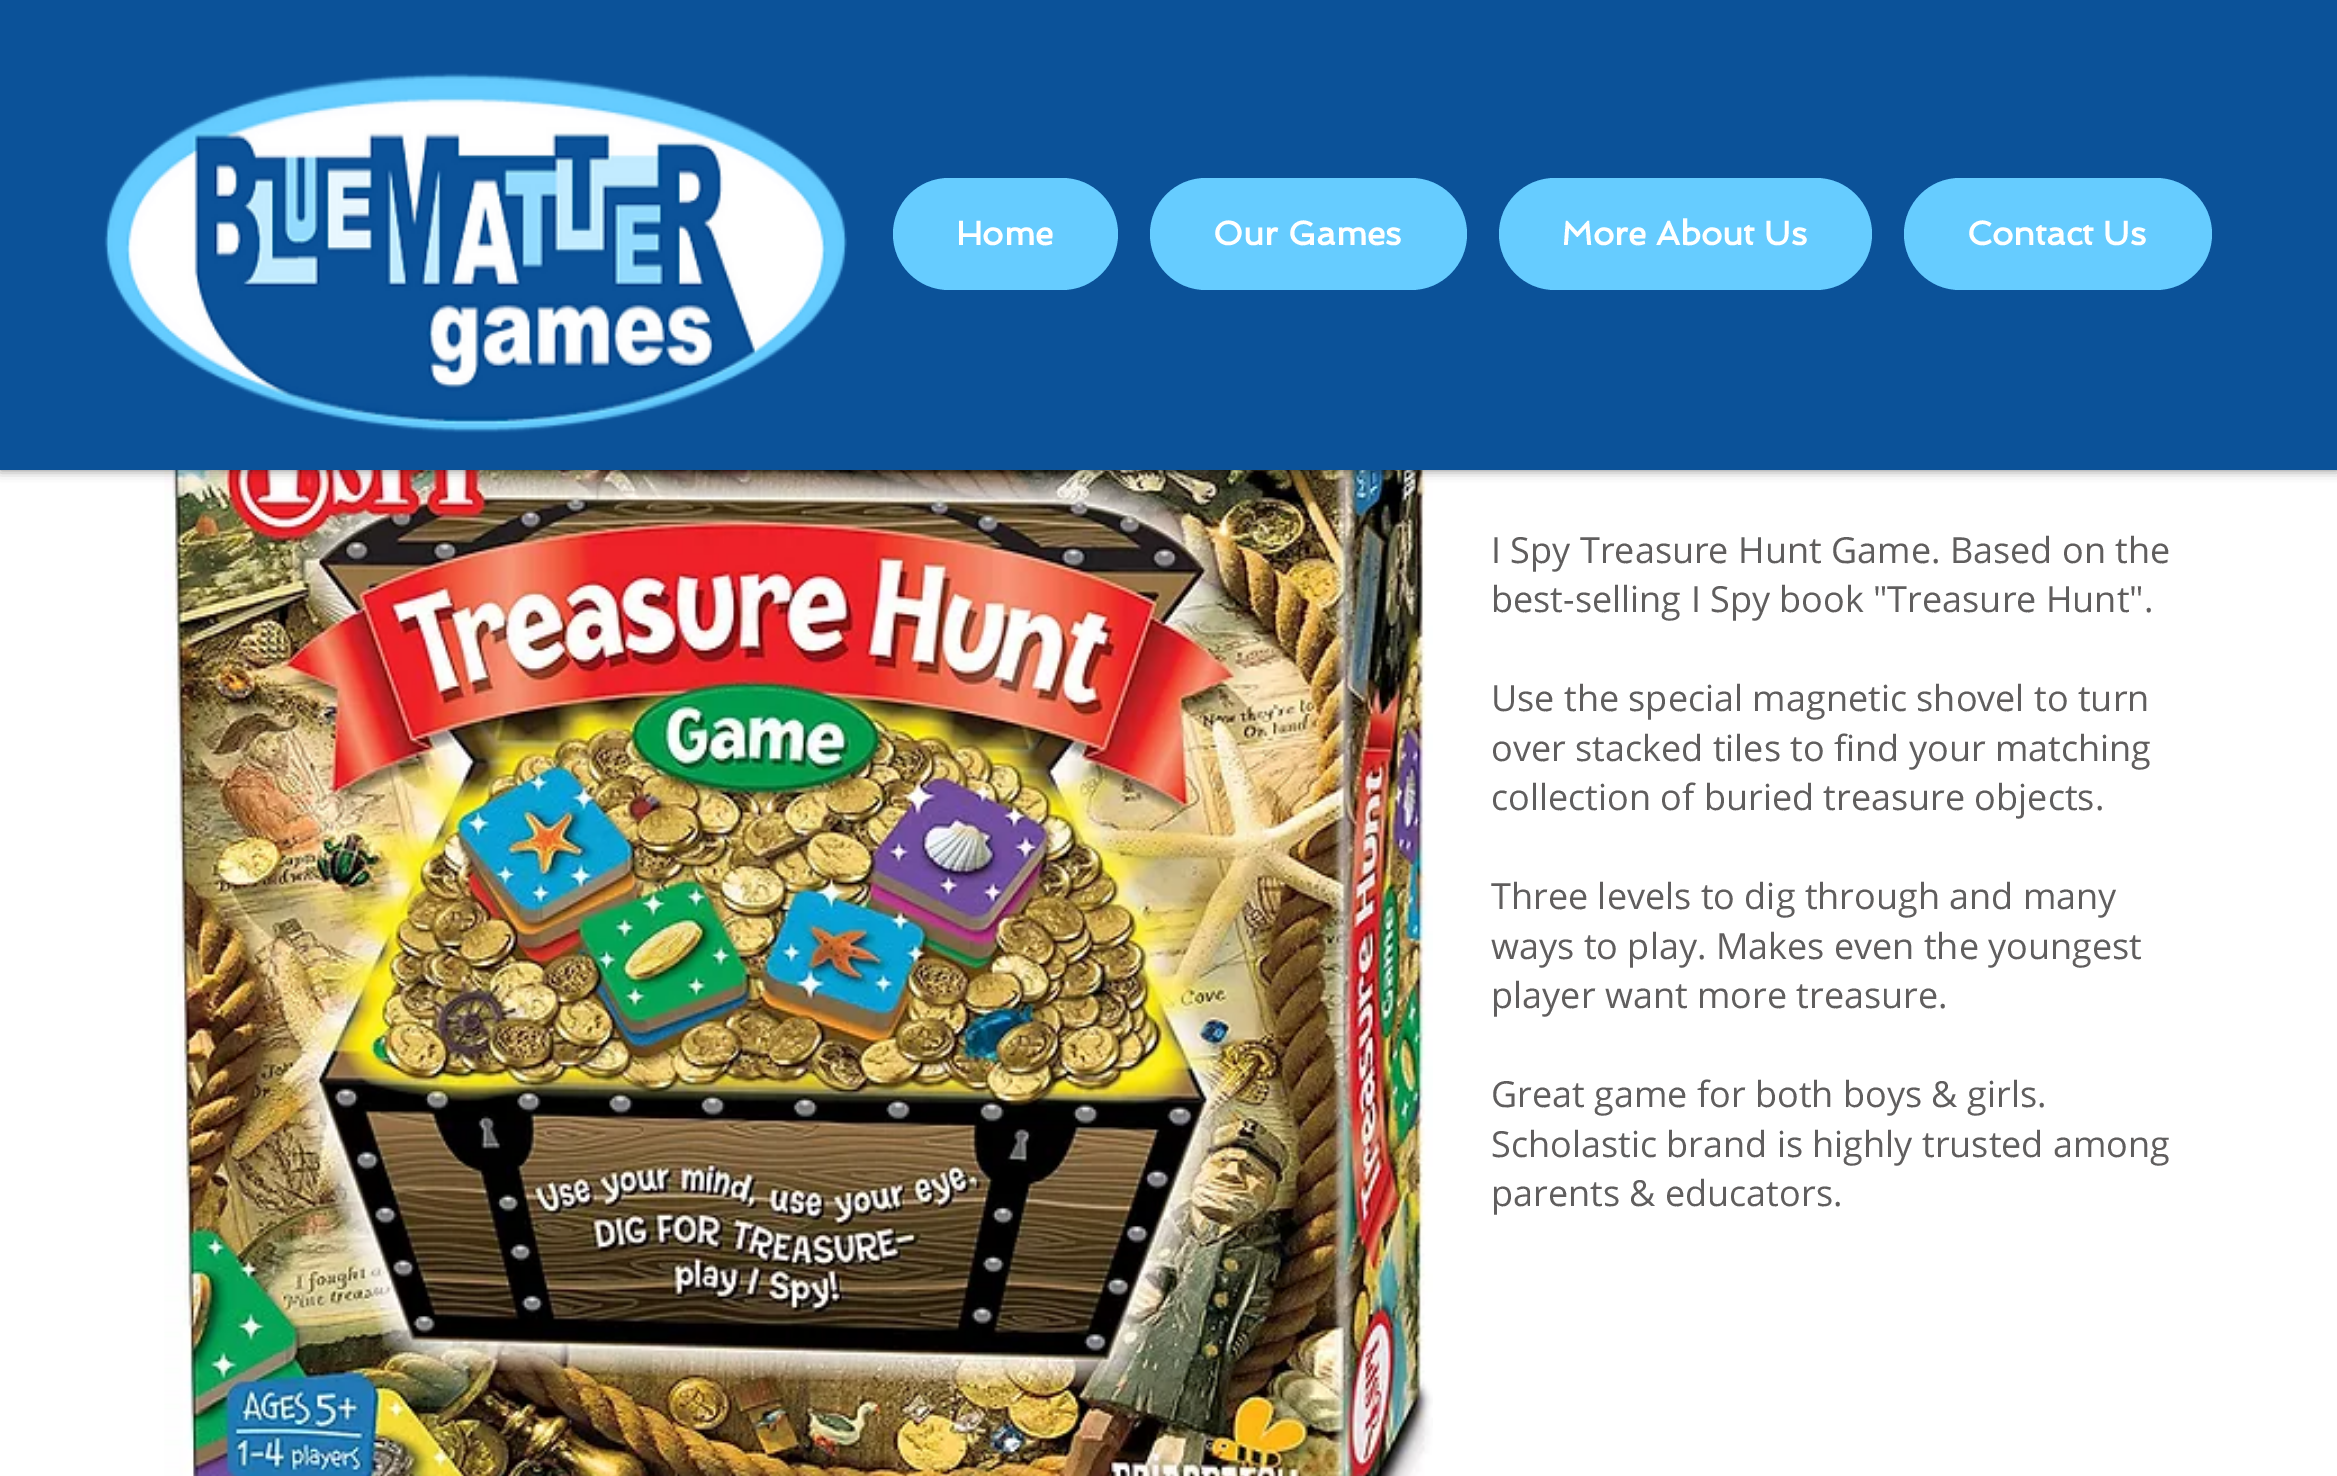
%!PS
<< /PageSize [2337 1476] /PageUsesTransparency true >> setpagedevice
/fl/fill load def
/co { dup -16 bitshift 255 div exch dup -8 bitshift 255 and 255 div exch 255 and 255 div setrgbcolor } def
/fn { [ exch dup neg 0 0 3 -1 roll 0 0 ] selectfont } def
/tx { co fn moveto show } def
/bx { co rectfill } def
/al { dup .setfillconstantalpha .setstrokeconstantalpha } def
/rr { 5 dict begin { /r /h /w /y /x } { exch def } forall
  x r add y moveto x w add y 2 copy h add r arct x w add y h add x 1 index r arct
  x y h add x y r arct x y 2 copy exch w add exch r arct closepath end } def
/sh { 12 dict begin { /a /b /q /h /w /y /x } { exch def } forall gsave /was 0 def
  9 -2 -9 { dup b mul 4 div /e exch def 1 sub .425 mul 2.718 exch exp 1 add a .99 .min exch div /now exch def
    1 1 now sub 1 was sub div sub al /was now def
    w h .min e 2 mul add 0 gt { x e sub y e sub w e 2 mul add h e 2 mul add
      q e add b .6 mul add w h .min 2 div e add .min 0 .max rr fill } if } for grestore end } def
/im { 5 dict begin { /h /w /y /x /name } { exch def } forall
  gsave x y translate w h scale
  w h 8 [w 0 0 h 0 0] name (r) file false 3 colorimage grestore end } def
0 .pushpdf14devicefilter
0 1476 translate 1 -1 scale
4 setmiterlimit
0 0 2337 1476 16#FFFFFF bx
(media/2.raw) 164 470 1269 1006 im
16#000000 co
0 0 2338 470 0 5.5 .5 sh
0 0 2337 470 16#0B5299 bx
(media/1.raw) 104 73 743 360 im
16#66CCFF co
893 178 225 112 56 rr fl
1150 178 317 112 56 rr fl
1499 178 373 112 56 rr fl
1904 178 308 112 56 rr fl
(Home) 956 245 /Spinnaker-Bold 33.75 16#FFFFFF tx
(Our Games) 1213 245 /Spinnaker-Bold 33.75 16#FFFFFF tx
(More About Us) 1561 245 /Spinnaker-Bold 33.75 16#FFFFFF tx
(Contact Us) 1967 245 /Spinnaker-Bold 33.75 16#FFFFFF tx
(I Spy Treasure Hunt Game. Based on the) 1491 563 /OpenSans-Regular 36 16#605E5E tx
(best-selling I Spy book "Treasure Hunt".) 1491 612 /OpenSans-Regular 36 16#605E5E tx
(Use the special magnetic shovel to turn) 1491 711 /OpenSans-Regular 36 16#605E5E tx
(over stacked tiles to find your matching) 1491 761 /OpenSans-Regular 36 16#605E5E tx
(collection of buried treasure objects.) 1491 810 /OpenSans-Regular 36 16#605E5E tx
(Three levels to dig through and many) 1491 909 /OpenSans-Regular 36 16#605E5E tx
(ways to play. Makes even the youngest) 1491 959 /OpenSans-Regular 36 16#605E5E tx
(player want more treasure.) 1491 1008 /OpenSans-Regular 36 16#605E5E tx
(Great game for both boys & girls.) 1491 1107 /OpenSans-Regular 36 16#605E5E tx
(Scholastic brand is highly trusted among) 1491 1157 /OpenSans-Regular 36 16#605E5E tx
(parents & educators.) 1491 1206 /OpenSans-Regular 36 16#605E5E tx
.poppdf14devicefilter showpage
